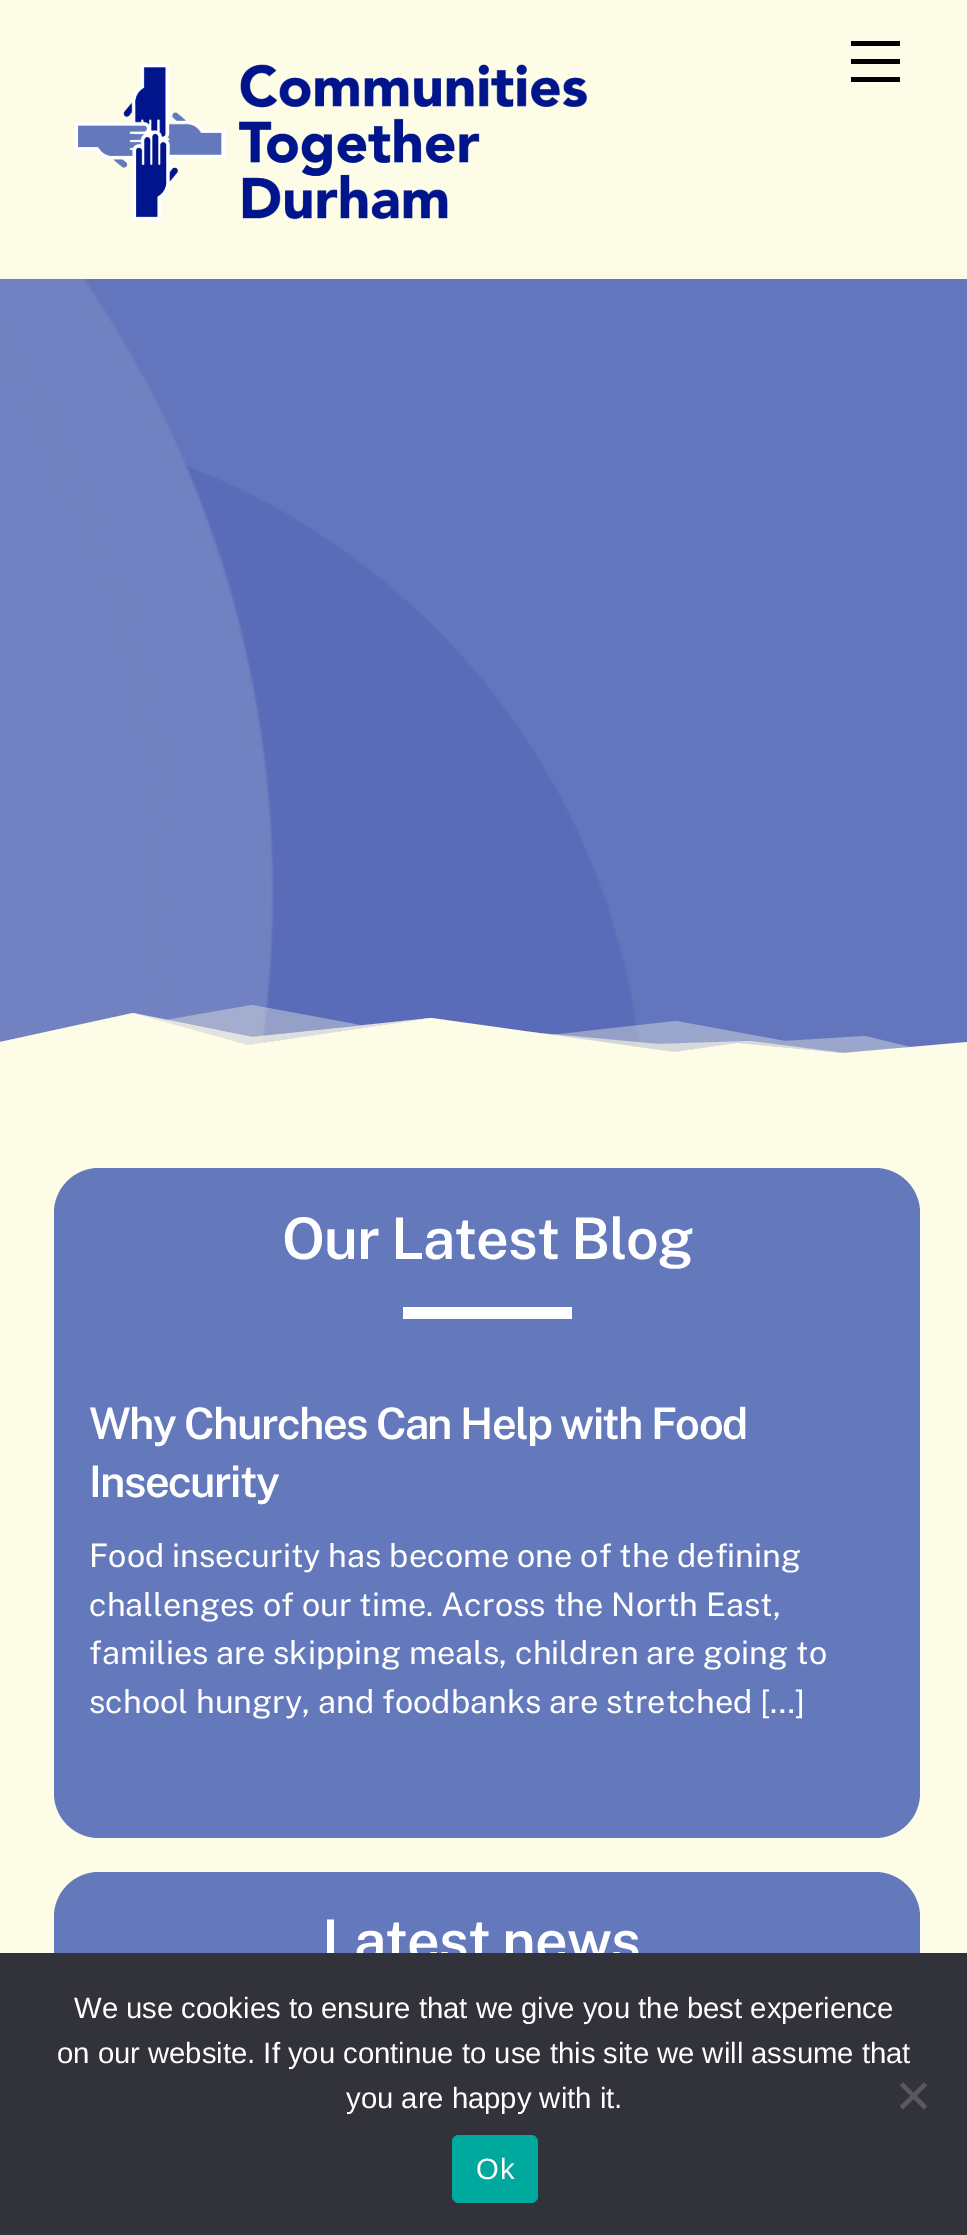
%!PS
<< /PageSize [967 2235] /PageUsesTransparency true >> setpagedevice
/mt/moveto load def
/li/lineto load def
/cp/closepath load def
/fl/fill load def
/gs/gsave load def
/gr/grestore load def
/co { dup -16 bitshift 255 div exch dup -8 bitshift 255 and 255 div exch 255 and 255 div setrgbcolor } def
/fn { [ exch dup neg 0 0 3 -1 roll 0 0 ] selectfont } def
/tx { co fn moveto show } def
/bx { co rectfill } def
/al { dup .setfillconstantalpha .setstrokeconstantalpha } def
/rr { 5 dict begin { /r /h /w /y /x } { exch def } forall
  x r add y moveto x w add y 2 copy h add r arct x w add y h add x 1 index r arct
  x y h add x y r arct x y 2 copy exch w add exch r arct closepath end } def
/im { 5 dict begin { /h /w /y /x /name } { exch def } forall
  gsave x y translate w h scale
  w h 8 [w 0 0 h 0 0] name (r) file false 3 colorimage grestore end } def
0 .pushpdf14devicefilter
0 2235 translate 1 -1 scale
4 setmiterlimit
0 0 967 2235 16#FFFFFF bx
0 0 967 279 16#FDFCE6 bx
(media/1.raw) 74 63 513 158 im
851 77 49 5 16#000000 bx
851 41 49 5 16#000000 bx
851 59 49 5 16#000000 bx
(media/2.raw) 0 279 967 774 im
0.36 al
16#FDFCE6 co
674 1052 mt 737 1043 li 843 1053 li 910 1047 li 865 1036 li 785 1041 li 676 1021 li 551 1035 li cp 252 1037 mt 360 1025 li 252 1005 li 166 1020 li cp fl
gs
0 997 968 61 rectclip
1 al
843 1053 mt 737 1043 li 674 1052 li 431 1018 li 248 1045 li 133 1013 li 0 1042 li 0 1059 li 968 1059 li 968 1042 li cp fl
gr
0.6 al
674 1052 mt 737 1043 li 836 1052 li 750 1041 li 658 1044 li 528 1032 li cp fl
0.8 al
431 1018 mt 252 1037 li 133 1013 li 248 1045 li cp fl
1 al
0 1058 967 895 16#FDFCE6 bx
16#6479BC co
54 1168 866 670 45 rr fl
403 1307 169 12 16#FFFFFF bx
16#6479BC co
54 1872 866 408 45 rr fl
/PublicSans-SemiBold 57.5 fn
16#FFFFFF co
282 1259 mt -1.1 0 (Our Latest Blog) ashow
/PublicSans-SemiBold 43.5 fn
89 1439 mt -1.6 0 (Why Churches Can Help with Food) ashow
89 1497 mt -1.6 0 (Insecurity) ashow
(Food insecurity has become one of the defining) 89 1567 /PublicSans-Regular 32.4 16#FFFFFF tx
(challenges of our time. Across the North East,) 89 1616 /PublicSans-Regular 32.4 16#FFFFFF tx
(families are skipping meals, children are going to) 89 1664 /PublicSans-Regular 32.4 16#FFFFFF tx
(school hungry, and foodbanks are stretched […]) 89 1713 /PublicSans-Regular 32.4 16#FFFFFF tx
/PublicSans-SemiBold 57.5 fn
322 1961 mt -1.1 0 (Latest news) ashow
0 1953 967 282 16#32323A bx
(We use cookies to ensure that we give you the best experience) 74 2018 /LiberationSans-Regular 29.25 16#FFFFFF tx
(on our website. If you continue to use this site we will assume that) 57 2063 /LiberationSans-Regular 29.25 16#FFFFFF tx
(you are happy with it.) 346 2108 /LiberationSans-Regular 29.25 16#FFFFFF tx
16#59595D co
924 2082.5 mt 927 2085.5 li 903 2109.5 li 900 2106 li cp fl
900 2085.5 mt 903 2082.5 li 927 2106 li 924 2109.5 li cp fl
16#00A99D co
452 2135 86 68 7 rr fl
16#FFFFFF co
476 2179 mt 1 0 (Ok) ashow
.poppdf14devicefilter showpage
